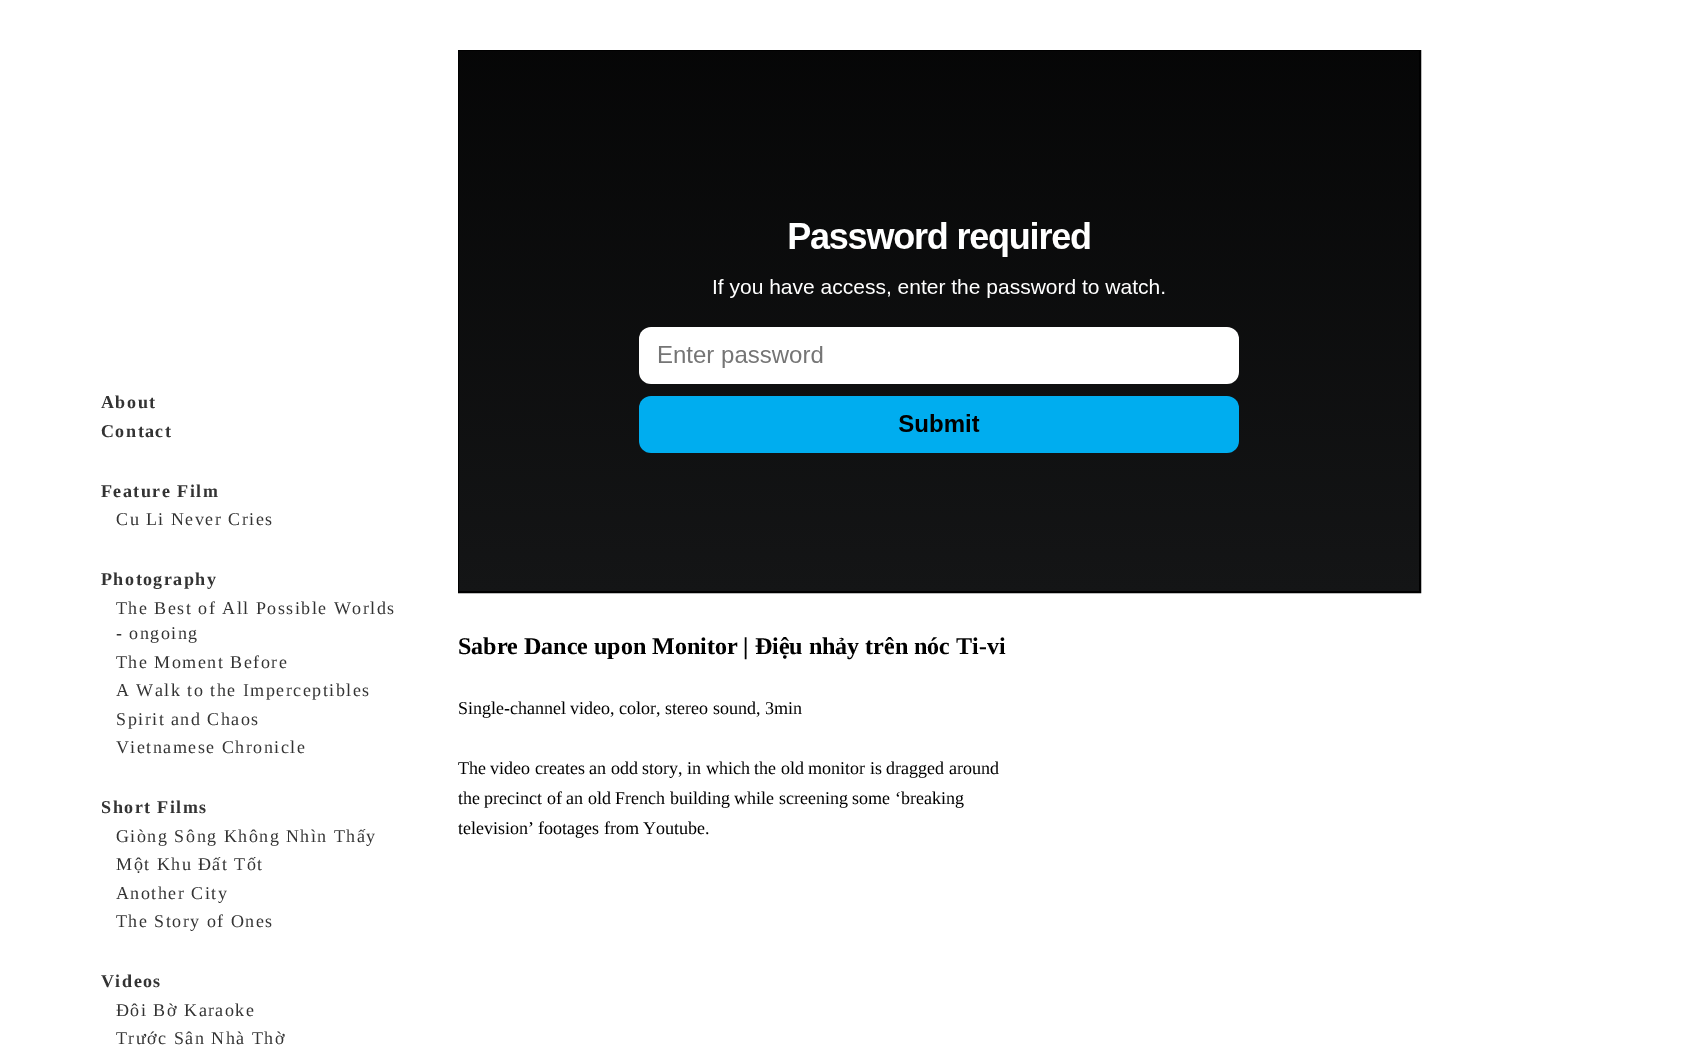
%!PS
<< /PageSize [1704 1047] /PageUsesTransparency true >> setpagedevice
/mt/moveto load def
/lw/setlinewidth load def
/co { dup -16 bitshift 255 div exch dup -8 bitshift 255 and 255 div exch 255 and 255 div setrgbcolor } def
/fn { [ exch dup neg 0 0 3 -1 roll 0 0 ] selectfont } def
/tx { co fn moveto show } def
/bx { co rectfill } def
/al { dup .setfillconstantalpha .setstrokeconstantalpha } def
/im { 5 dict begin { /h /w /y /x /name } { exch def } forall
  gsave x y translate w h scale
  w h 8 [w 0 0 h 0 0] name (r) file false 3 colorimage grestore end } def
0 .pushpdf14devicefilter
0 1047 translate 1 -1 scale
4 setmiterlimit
0 0 1704 1047 16#FFFFFF bx
16#000000 co
2 lw
459 51 961 541 rectstroke
(media/1.raw) 459 51 960 540 im
/LiberationSerif-Bold 18 fn
16#333333 co
101 408 mt 1.5 0 (About) ashow
101 437 mt 1.5 0 (Contact) ashow
101 497 mt 1.5 0 (Feature Film) ashow
/LiberationSerif-Regular 18 fn
116 525 mt 1.5 0 (Cu Li Never Cries) ashow
/LiberationSerif-Bold 18 fn
101 585 mt 1.5 0 (Photography) ashow
/LiberationSerif-Regular 18 fn
116 614 mt 1.5 0 (The Best of All Possible Worlds) ashow
116 639 mt 1.5 0 (- ongoing) ashow
116 668 mt 1.5 0 (The Moment Before) ashow
116 696 mt 1.5 0 (A Walk to the Imperceptibles) ashow
116 725 mt 1.5 0 (Spirit and Chaos) ashow
116 753 mt 1.5 0 (Vietnamese Chronicle) ashow
/LiberationSerif-Bold 18 fn
101 813 mt 1.5 0 (Short Films) ashow
/LiberationSerif-Regular 18 fn
116 842 mt 1.5 0 (Giòng Sông Không Nhìn Thấy) ashow
116 870 mt 1.5 0 (Một Khu Đất Tốt) ashow
116 899 mt 1.5 0 (Another City) ashow
116 927 mt 1.5 0 (The Story of Ones) ashow
/LiberationSerif-Bold 18 fn
101 987 mt 1.5 0 (Videos) ashow
/LiberationSerif-Regular 18 fn
116 1016 mt 1.5 0 (Đôi Bờ Karaoke) ashow
116 1044 mt 1.5 0 (Trước Sân Nhà Thờ) ashow
(Sabre Dance upon Monitor | Điệu nhảy trên nóc Ti-vi) 458 654 /LiberationSerif-Bold 24 16#000000 tx
(Single-channel video, color, stereo sound, 3min) 458 714 /LiberationSerif-Regular 18 16#000000 tx
(The video creates an odd story, in which the old monitor is dragged around) 458 774 /LiberationSerif-Regular 18 16#000000 tx
(the precinct of an old French building while screening some ‘breaking) 458 804 /LiberationSerif-Regular 18 16#000000 tx
(television’ footages from Youtube.) 458 834 /LiberationSerif-Regular 18 16#000000 tx
0.8 al
457 762 1 65 16#FFFFFF bx
.poppdf14devicefilter showpage
